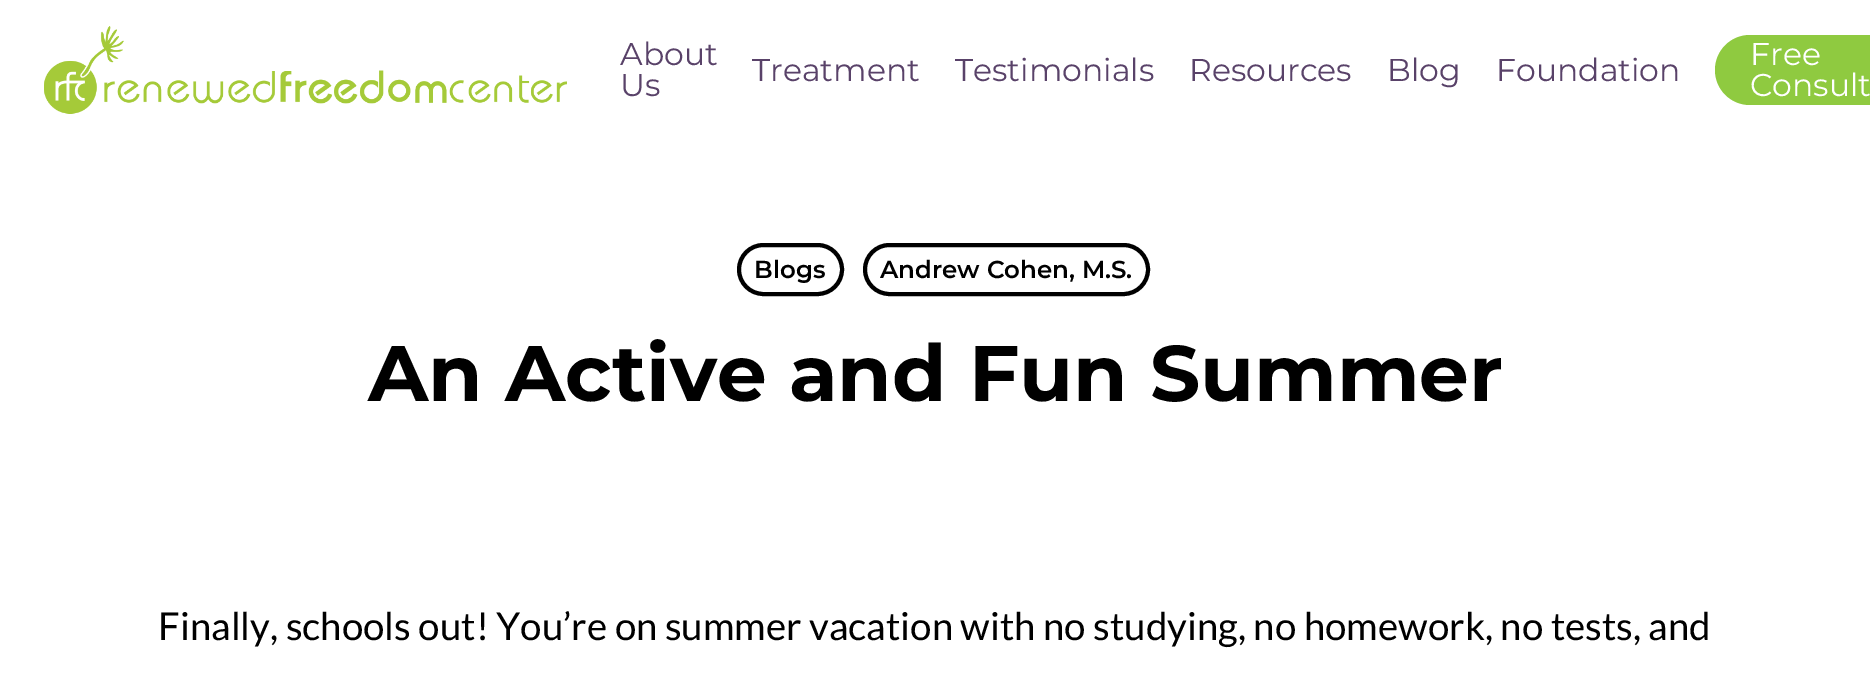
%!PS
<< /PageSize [1870 684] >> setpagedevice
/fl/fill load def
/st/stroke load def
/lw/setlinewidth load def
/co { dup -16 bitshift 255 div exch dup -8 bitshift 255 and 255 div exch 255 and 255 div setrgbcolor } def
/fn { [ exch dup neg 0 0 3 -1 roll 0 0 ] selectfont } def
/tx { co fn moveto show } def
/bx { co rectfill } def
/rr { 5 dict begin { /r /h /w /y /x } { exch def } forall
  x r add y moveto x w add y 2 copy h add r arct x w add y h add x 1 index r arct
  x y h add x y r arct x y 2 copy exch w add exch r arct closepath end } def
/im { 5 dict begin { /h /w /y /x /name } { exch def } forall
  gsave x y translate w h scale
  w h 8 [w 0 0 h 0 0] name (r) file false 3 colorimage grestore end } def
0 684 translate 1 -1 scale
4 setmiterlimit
0 0 1870 684 16#FFFFFF bx
(media/1.raw) 44 26 523 88 im
16#8FCA40 co
1715 35 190 70 35 rr fl
16#000000 co
4 lw
739 245 103 49 24.5 rr st
865 245 283 49 24.5 rr st
(About) 620 65 /Montserrat-Regular 31.5 16#594269 tx
(Us) 620 96 /Montserrat-Regular 31.5 16#594269 tx
(Treatment) 752 81 /Montserrat-Regular 31.5 16#594269 tx
(Testimonials) 955 81 /Montserrat-Regular 31.5 16#594269 tx
(Resources) 1189 81 /Montserrat-Regular 31.5 16#594269 tx
(Blog) 1387 81 /Montserrat-Regular 31.5 16#594269 tx
(Foundation) 1496 81 /Montserrat-Regular 31.5 16#594269 tx
(Free) 1750 65 /Montserrat-Regular 31.5 16#FFFFFF tx
(Consult) 1750 96 /Montserrat-Regular 31.5 16#FFFFFF tx
(Blogs) 754 278 /Montserrat-SemiBold 24.5 16#000000 tx
(Andrew Cohen, M.S.) 880 278 /Montserrat-SemiBold 24.5 16#000000 tx
(An Active and Fun Summer) 368 401 /Montserrat-Bold 78.75 16#000000 tx
(Finally, schools out! You’re on summer vacation with no studying, no homework, no tests, and) 158 640 /Lato-Regular 38.5 16#000000 tx
showpage
